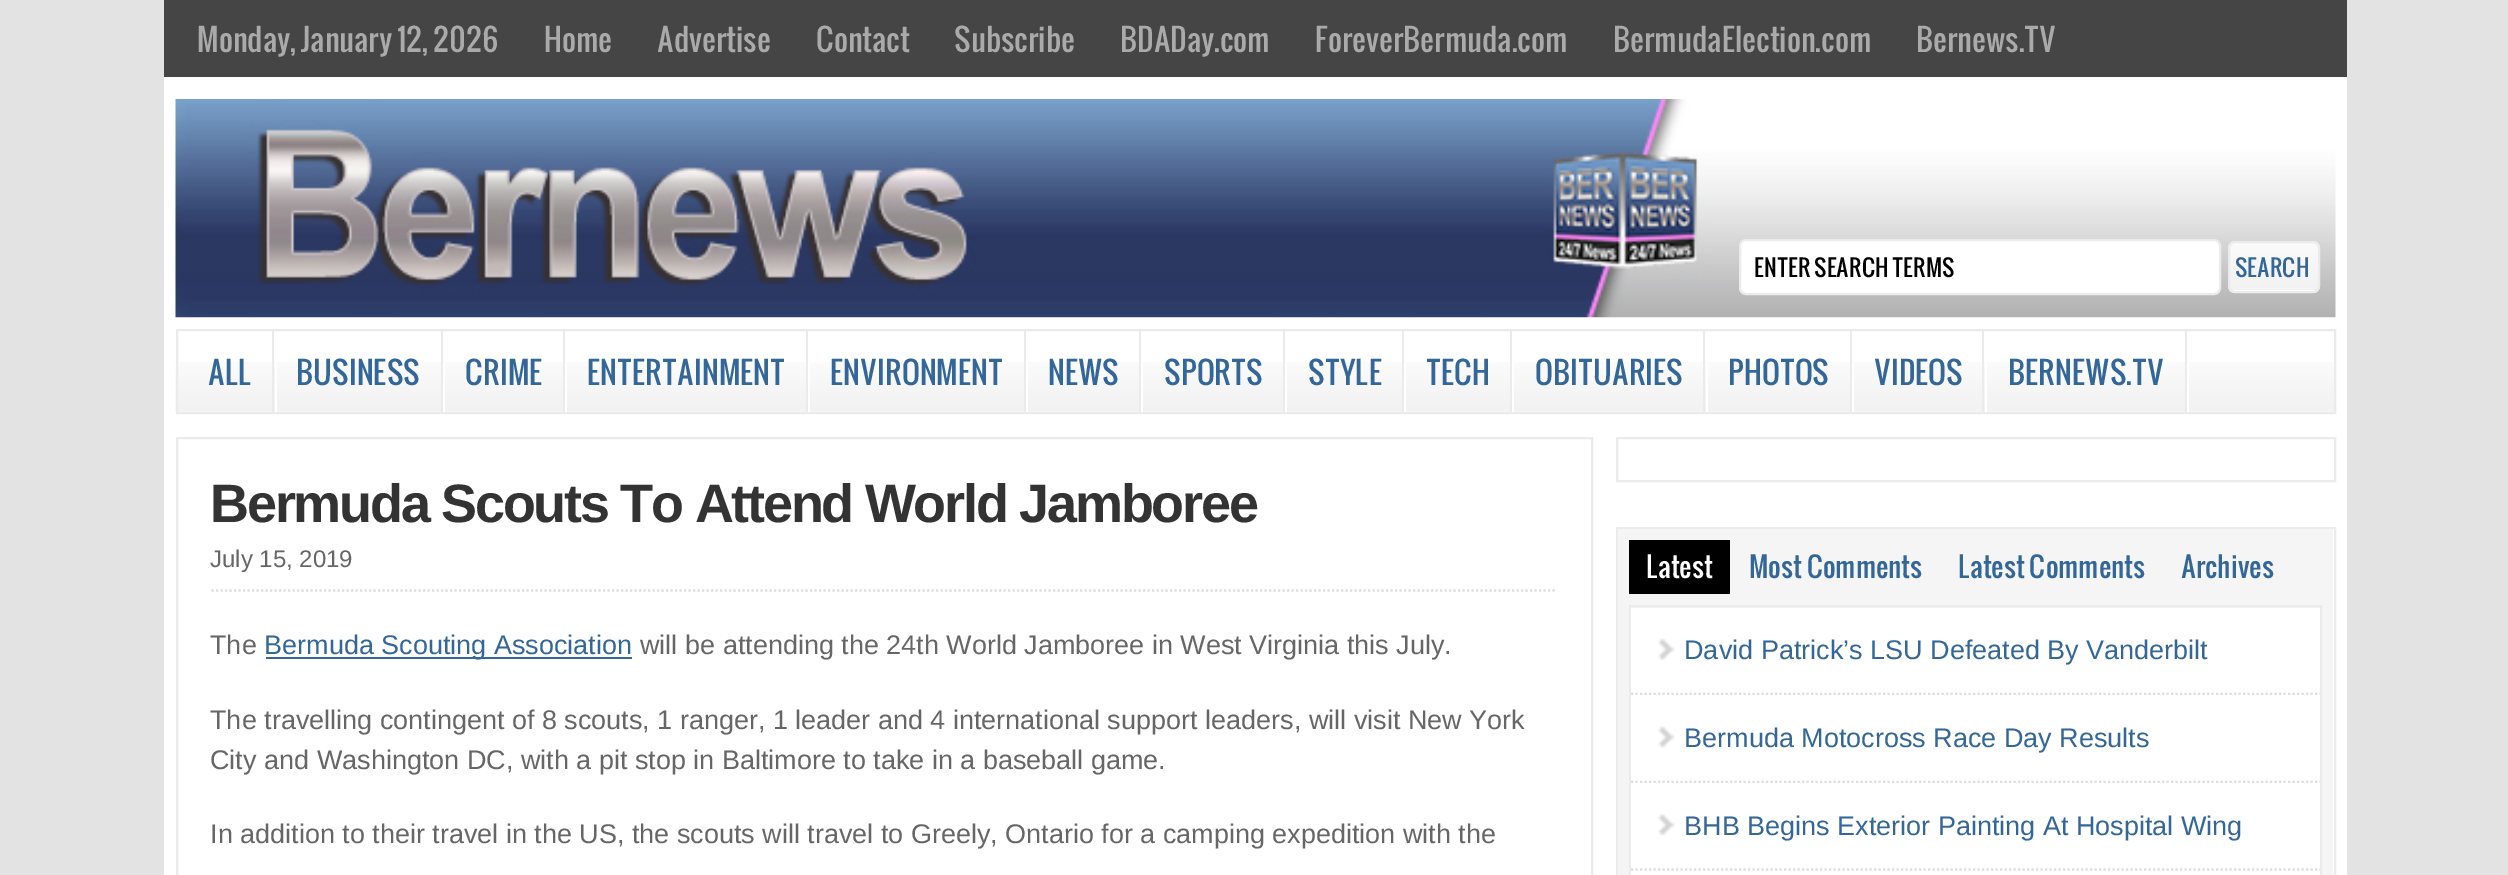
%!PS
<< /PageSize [2508 875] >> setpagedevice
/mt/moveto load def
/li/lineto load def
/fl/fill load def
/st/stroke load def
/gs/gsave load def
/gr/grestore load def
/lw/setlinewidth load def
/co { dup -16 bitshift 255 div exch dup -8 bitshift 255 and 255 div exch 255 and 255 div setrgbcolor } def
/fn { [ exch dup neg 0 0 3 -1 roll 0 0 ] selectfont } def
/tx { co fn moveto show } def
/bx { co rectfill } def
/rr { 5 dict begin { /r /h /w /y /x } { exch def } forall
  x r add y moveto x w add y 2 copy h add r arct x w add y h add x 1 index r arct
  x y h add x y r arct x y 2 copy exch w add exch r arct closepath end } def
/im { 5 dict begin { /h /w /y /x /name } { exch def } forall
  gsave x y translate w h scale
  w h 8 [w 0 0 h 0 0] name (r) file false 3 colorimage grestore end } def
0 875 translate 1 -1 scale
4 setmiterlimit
0 0 2508 875 16#E3E3E3 bx
164 0 2183 77 16#454545 bx
164 77 2183 798 16#FFFFFF bx
(media/1.raw) 175 99 2161 219 im
1740 240 480 54 6 rr gs fl gr
16#EBEBEB co
2 lw
st
16#FFFFFF co
2228 241 92 52 7 rr fl
(media/2.raw) 2228 241 92 49 im
16#EBEBEB co
2229 242 90 50 6 rr st
(media/3.raw) 175 362 2159 50 im
177 330 2158 83 rectstroke
275 362 2 50 16#FFFFFF bx
272 331 2 81 16#EBEBEB bx
443 362 2 50 16#FFFFFF bx
441 331 2 81 16#EBEBEB bx
565 362 2 50 16#FFFFFF bx
563 331 2 81 16#EBEBEB bx
808 362 2 50 16#FFFFFF bx
806 331 2 81 16#EBEBEB bx
1026 362 2 50 16#FFFFFF bx
1024 331 2 81 16#EBEBEB bx
1141 362 2 50 16#FFFFFF bx
1139 331 2 81 16#EBEBEB bx
1285 362 2 50 16#FFFFFF bx
1283 331 2 81 16#EBEBEB bx
1404 362 2 50 16#FFFFFF bx
1402 331 2 81 16#EBEBEB bx
1512 362 2 50 16#FFFFFF bx
1510 331 2 81 16#EBEBEB bx
1706 362 2 50 16#FFFFFF bx
1703 331 2 81 16#EBEBEB bx
1852 362 2 50 16#FFFFFF bx
1850 331 2 81 16#EBEBEB bx
1985 362 2 50 16#FFFFFF bx
1982 331 2 81 16#EBEBEB bx
2187 362 2 50 16#FFFFFF bx
2185 331 2 81 16#EBEBEB bx
177 438 1415 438 rectstroke
16#DDDDDD co
2.2 lw
[2.25 2.25] 0 setdash
211.5 590.5 mt 1557 590.5 li st
266 657 366 2 16#336699 bx
16#EBEBEB co
2 lw
[] 0 setdash
1617 438 718 43 rectstroke
1617 528 718 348 rectstroke
1618 529 715 346 16#F5F5F5 bx
1629 540 101 54 16#000000 bx
16#EBEBEB co
1630 606 691 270 rectstroke
1631 608 689 87 16#FFFFFF bx
(media/4.raw) 1658 638 17 22 im
16#DDDDDD co
2.2 lw
[2.25 2.25] 0 setdash
1631 694 mt 2320 694 li st
1631 695 689 88 16#FFFFFF bx
(media/5.raw) 1658 726 17 22 im
16#DDDDDD co
1631 782 mt 2320 782 li st
1631 783 689 92 16#FFFFFF bx
(media/6.raw) 1658 814 17 22 im
16#DDDDDD co
1631 869.5 mt 2320 869.5 li st
(Monday, January 12, 2026) 197 52 /Oswald-Regular 30 16#AAAAAA tx
(Home) 544 52 /Oswald-Regular 30 16#AAAAAA tx
(Advertise) 657 52 /Oswald-Regular 30 16#AAAAAA tx
(Contact) 816 52 /Oswald-Regular 30 16#AAAAAA tx
(Subscribe) 954 52 /Oswald-Regular 30 16#AAAAAA tx
(BDADay.com) 1120 52 /Oswald-Regular 30 16#AAAAAA tx
(ForeverBermuda.com) 1315 52 /Oswald-Regular 30 16#AAAAAA tx
(BermudaElection.com) 1613 52 /Oswald-Regular 30 16#AAAAAA tx
(Bernews.TV) 1916 52 /Oswald-Regular 30 16#AAAAAA tx
(ENTER SEARCH TERMS) 1754 277 /Oswald-Regular 22.5 16#000000 tx
(SEARCH) 2235 277 /Oswald-Regular 22.5 16#336699 tx
(ALL) 208 385 /Oswald-Regular 30 16#336699 tx
(BUSINESS) 296 385 /Oswald-Regular 30 16#336699 tx
(CRIME) 465 385 /Oswald-Regular 30 16#336699 tx
(ENTERTAINMENT) 587 385 /Oswald-Regular 30 16#336699 tx
(ENVIRONMENT) 830 385 /Oswald-Regular 30 16#336699 tx
(NEWS) 1048 385 /Oswald-Regular 30 16#336699 tx
(SPORTS) 1164 385 /Oswald-Regular 30 16#336699 tx
(STYLE) 1308 385 /Oswald-Regular 30 16#336699 tx
(TECH) 1426 385 /Oswald-Regular 30 16#336699 tx
(OBITUARIES) 1535 385 /Oswald-Regular 30 16#336699 tx
(PHOTOS) 1728 385 /Oswald-Regular 30 16#336699 tx
(VIDEOS) 1874 385 /Oswald-Regular 30 16#336699 tx
(BERNEWS.TV) 2008 385 /Oswald-Regular 30 16#336699 tx
/LiberationSans-Bold 54 fn
16#333333 co
210 522 mt -2.25 0 (Bermuda Scouts To Attend World Jamboree) ashow
(July 15, 2019) 210 567 /LiberationSans-Regular 24 16#666666 tx
(The) 210 654 /LiberationSans-Regular 27 16#666666 tx
(Bermuda Scouting Association) 264 654 /LiberationSans-Regular 27 16#336699 tx
(will be attending the 24th World Jamboree in West Virginia this July.) 640 654 /LiberationSans-Regular 27 16#666666 tx
(The travelling contingent of 8 scouts, 1 ranger, 1 leader and 4 international support leaders, will visit New York) 210 729 /LiberationSans-Regular 27 16#666666 tx
(City and Washington DC, with a pit stop in Baltimore to take in a baseball game.) 210 769 /LiberationSans-Regular 27 16#666666 tx
(In addition to their travel in the US, the scouts will travel to Greely, Ontario for a camping expedition with the) 210 843 /LiberationSans-Regular 27 16#666666 tx
(Latest) 1646 578 /Oswald-Regular 27 16#FFFFFF tx
(Most Comments) 1749 578 /Oswald-Regular 27 16#336699 tx
(Latest Comments) 1958 578 /Oswald-Regular 27 16#336699 tx
(Archives) 2181 578 /Oswald-Regular 27 16#336699 tx
(David Patrick’s LSU Defeated By Vanderbilt) 1684 659 /LiberationSans-Regular 27 16#336699 tx
(Bermuda Motocross Race Day Results) 1684 747 /LiberationSans-Regular 27 16#336699 tx
(BHB Begins Exterior Painting At Hospital Wing) 1684 835 /LiberationSans-Regular 27 16#336699 tx
showpage
